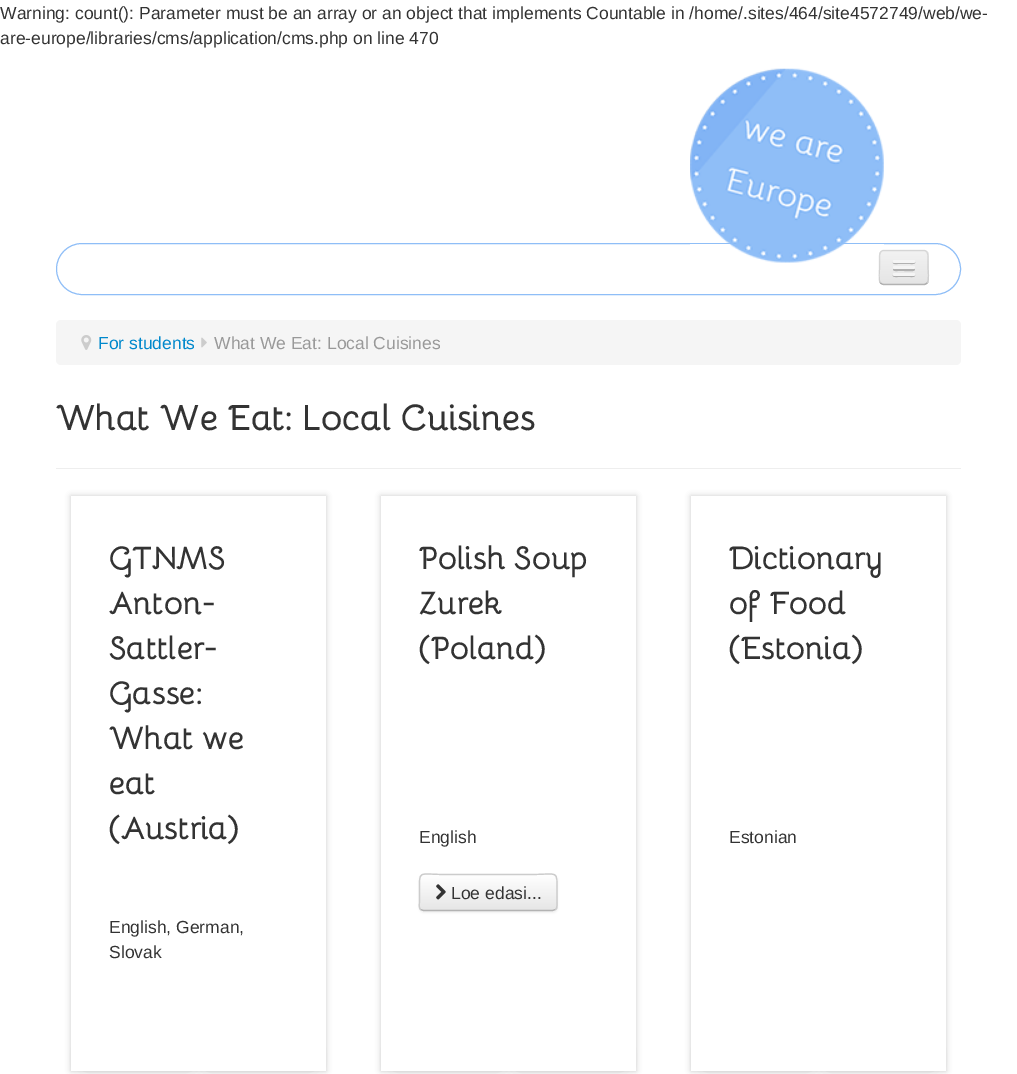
%!PS
<< /PageSize [1017 1074] /PageUsesTransparency true >> setpagedevice
/mt/moveto load def
/li/lineto load def
/ct/curveto load def
/cp/closepath load def
/fl/fill load def
/st/stroke load def
/gs/gsave load def
/gr/grestore load def
/lw/setlinewidth load def
/co { dup -16 bitshift 255 div exch dup -8 bitshift 255 and 255 div exch 255 and 255 div setrgbcolor } def
/fn { [ exch dup neg 0 0 3 -1 roll 0 0 ] selectfont } def
/tx { co fn moveto show } def
/bx { co rectfill } def
/al { dup .setfillconstantalpha .setstrokeconstantalpha } def
/rr { 5 dict begin { /r /h /w /y /x } { exch def } forall
  x r add y moveto x w add y 2 copy h add r arct x w add y h add x 1 index r arct
  x y h add x y r arct x y 2 copy exch w add exch r arct closepath end } def
/sh { 12 dict begin { /a /b /q /h /w /y /x } { exch def } forall gsave /was 0 def
  9 -2 -9 { dup b mul 4 div /e exch def 1 sub .425 mul 2.718 exch exp 1 add a .99 .min exch div /now exch def
    1 1 now sub 1 was sub div sub al /was now def
    w h .min e 2 mul add 0 gt { x e sub y e sub w e 2 mul add h e 2 mul add
      q e add b .6 mul add w h .min 2 div e add .min 0 .max rr fill } if } for grestore end } def
/im { 5 dict begin { /h /w /y /x /name } { exch def } forall
  gsave x y translate w h scale
  w h 8 [w 0 0 h 0 0] name (r) file false 3 colorimage grestore end } def
0 .pushpdf14devicefilter
0 1074 translate 1 -1 scale
4 setmiterlimit
0 0 1017 1074 16#FFFFFF bx
16#8FBEF7 co
56.5 243.5 904 51 25.5 rr st
(media/1.raw) 690 68 194 195 im
16#EDEDED co
879 250 50 35 5 rr fl
gs
879 250 50 35 5 rr clip newpath
gs 879 251 mt 929 251 li 929 284 li 879 284 li cp clip newpath
<< /ShadingType 2 /ColorSpace /DeviceRGB /Coords [904 251 904 284] /Extend [true true] /Function << /FunctionType 2 /Domain [0 1] /C0 [.949 .949 .949] /C1 [.898 .898 .898] /N 1 >> >> shfill gr
gr
0.25 al
16#000000 co
1.2 lw
927 283 mt 926 284 925 284.5 924 284.5 ct 884 284.5 li 882.5 284.5 881.5 284 880.5 283 ct st
0.1 al
880.5 283 mt 878 280.5 879.5 270.5 879.5 267.5 ct 879.5 259 li 879.5 256 879 251.5 883 250.5 ct 924.5 250.5 li 928.5 251.5 928 256 928 259 ct 928 267.5 li 928 270.5 929.5 280.5 927 283 ct st
1 al
16#B2B2B2 co
893 262.5 mt 892.5 264.5 896.5 264 897.5 264 ct 910.5 264 li 911 264 916 264.5 915 262 ct 914 262.5 li 912 262.5 893.5 262.5 893 262.5 ct cp fl
16#F5F5F5 co
893 260 22 3 1.5 rr fl
16#B0B0B0 co
893.5 268.5 mt 891.5 271.5 897 271 897.5 271 ct 904 271 li 906 271 914 271.5 914.5 270.5 ct 915 269.5 915 269 914.5 268.5 ct 914 269 894.5 269 893.5 268.5 ct cp fl
16#F5F5F5 co
893 266 22 3 1.5 rr fl
16#AEAEAE co
893 275 mt 892 277.5 897 277 897.5 277 ct 910.5 277 li 910.5 277 917 277.5 914.5 274.5 ct 914 275 li cp fl
16#F5F5F5 co
893 273 22 3 1.5 rr fl
56 320 905 45 5 rr fl
(media/2.raw) 81 335 11 15 im
(media/3.raw) 201 337 6 11 im
56 468 905 1 16#EEEEEE bx
16#000000 co
71 496 255 575 0 3 .2 sh
86 1051 103 13 0 7.5 .3 sh
209 1051 102 13 0 7.5 .3 sh
71 496 255 575 16#FFFFFF bx
16#000000 co
381 496 255 575 0 3 .2 sh
396 1051 103 13 0 7.5 .3 sh
519 1051 102 13 0 7.5 .3 sh
381 496 255 575 16#FFFFFF bx
16#000000 co
419 875 139 38 5 1 .05 sh
16#F5F5F5 co
419 874 139 37 5 rr fl
gs
419 874 139 37 5 rr clip newpath
gs 419 875 mt 558 875 li 558 910 li 419 910 li cp clip newpath
<< /ShadingType 2 /ColorSpace /DeviceRGB /Coords [488 875 488 910] /Extend [true true] /Function << /FunctionType 2 /Domain [0 1] /C0 [1 1 1] /C1 [.902 .902 .902] /N 1 >> >> shfill gr
gr
16#B3B3B3 co
555.5 909.5 mt 552.5 910.5 li 423.5 910.5 li 420.5 909.5 li st
16#CCCCCC co
420.5 909.5 mt 418.5 907.5 419.5 904 419.5 901.5 ct 419.5 892.5 li 419.5 869 417.5 874.5 445 874.5 ct 531 874.5 li 559 874.5 557 869 557 892.5 ct 557 901.5 li 557 904 557.5 907.5 555.5 909.5 ct st
(media/4.raw) 436 884 10 16 im
16#000000 co
691 496 255 575 0 3 .2 sh
706 1051 103 13 0 7.5 .3 sh
829 1051 102 13 0 7.5 .3 sh
691 496 255 575 16#FFFFFF bx
(Warning: count\(\): Parameter must be an array or an object that implements Countable in /home/.sites/464/site4572749/web/we-) 0 19 /LiberationSans-Regular 17.5 16#333333 tx
(are-europe/libraries/cms/application/cms.php on line 470) 0 44 /LiberationSans-Regular 17.5 16#333333 tx
(For students) 98 349 /LiberationSans-Regular 17.5 16#0088CC tx
(What We Eat: Local Cuisines) 214 349 /LiberationSans-Regular 17.5 16#999999 tx
(What We Eat: Local Cuisines) 56 430 /Bellota-Bold 35 16#333333 tx
(GTNMS) 109 569 /Bellota-Bold 31.25 16#333333 tx
(Anton-) 109 614 /Bellota-Bold 31.25 16#333333 tx
(Sattler-) 109 659 /Bellota-Bold 31.25 16#333333 tx
(Gasse:) 109 704 /Bellota-Bold 31.25 16#333333 tx
(What we) 109 749 /Bellota-Bold 31.25 16#333333 tx
(eat) 109 794 /Bellota-Bold 31.25 16#333333 tx
(\(Austria\)) 109 839 /Bellota-Bold 31.25 16#333333 tx
(English, German,) 109 933 /LiberationSans-Regular 17.5 16#333333 tx
(Slovak) 109 958 /LiberationSans-Regular 17.5 16#333333 tx
(Polish Soup) 419 569 /Bellota-Bold 31.25 16#333333 tx
(Zurek) 419 614 /Bellota-Bold 31.25 16#333333 tx
(\(Poland\)) 419 659 /Bellota-Bold 31.25 16#333333 tx
(English) 419 843 /LiberationSans-Regular 17.5 16#333333 tx
(Loe edasi...) 451 899 /LiberationSans-Regular 17.5 16#333333 tx
(Dictionary) 729 569 /Bellota-Bold 31.25 16#333333 tx
(of Food) 729 614 /Bellota-Bold 31.25 16#333333 tx
(\(Estonia\)) 729 659 /Bellota-Bold 31.25 16#333333 tx
(Estonian) 729 843 /LiberationSans-Regular 17.5 16#333333 tx
.poppdf14devicefilter showpage
